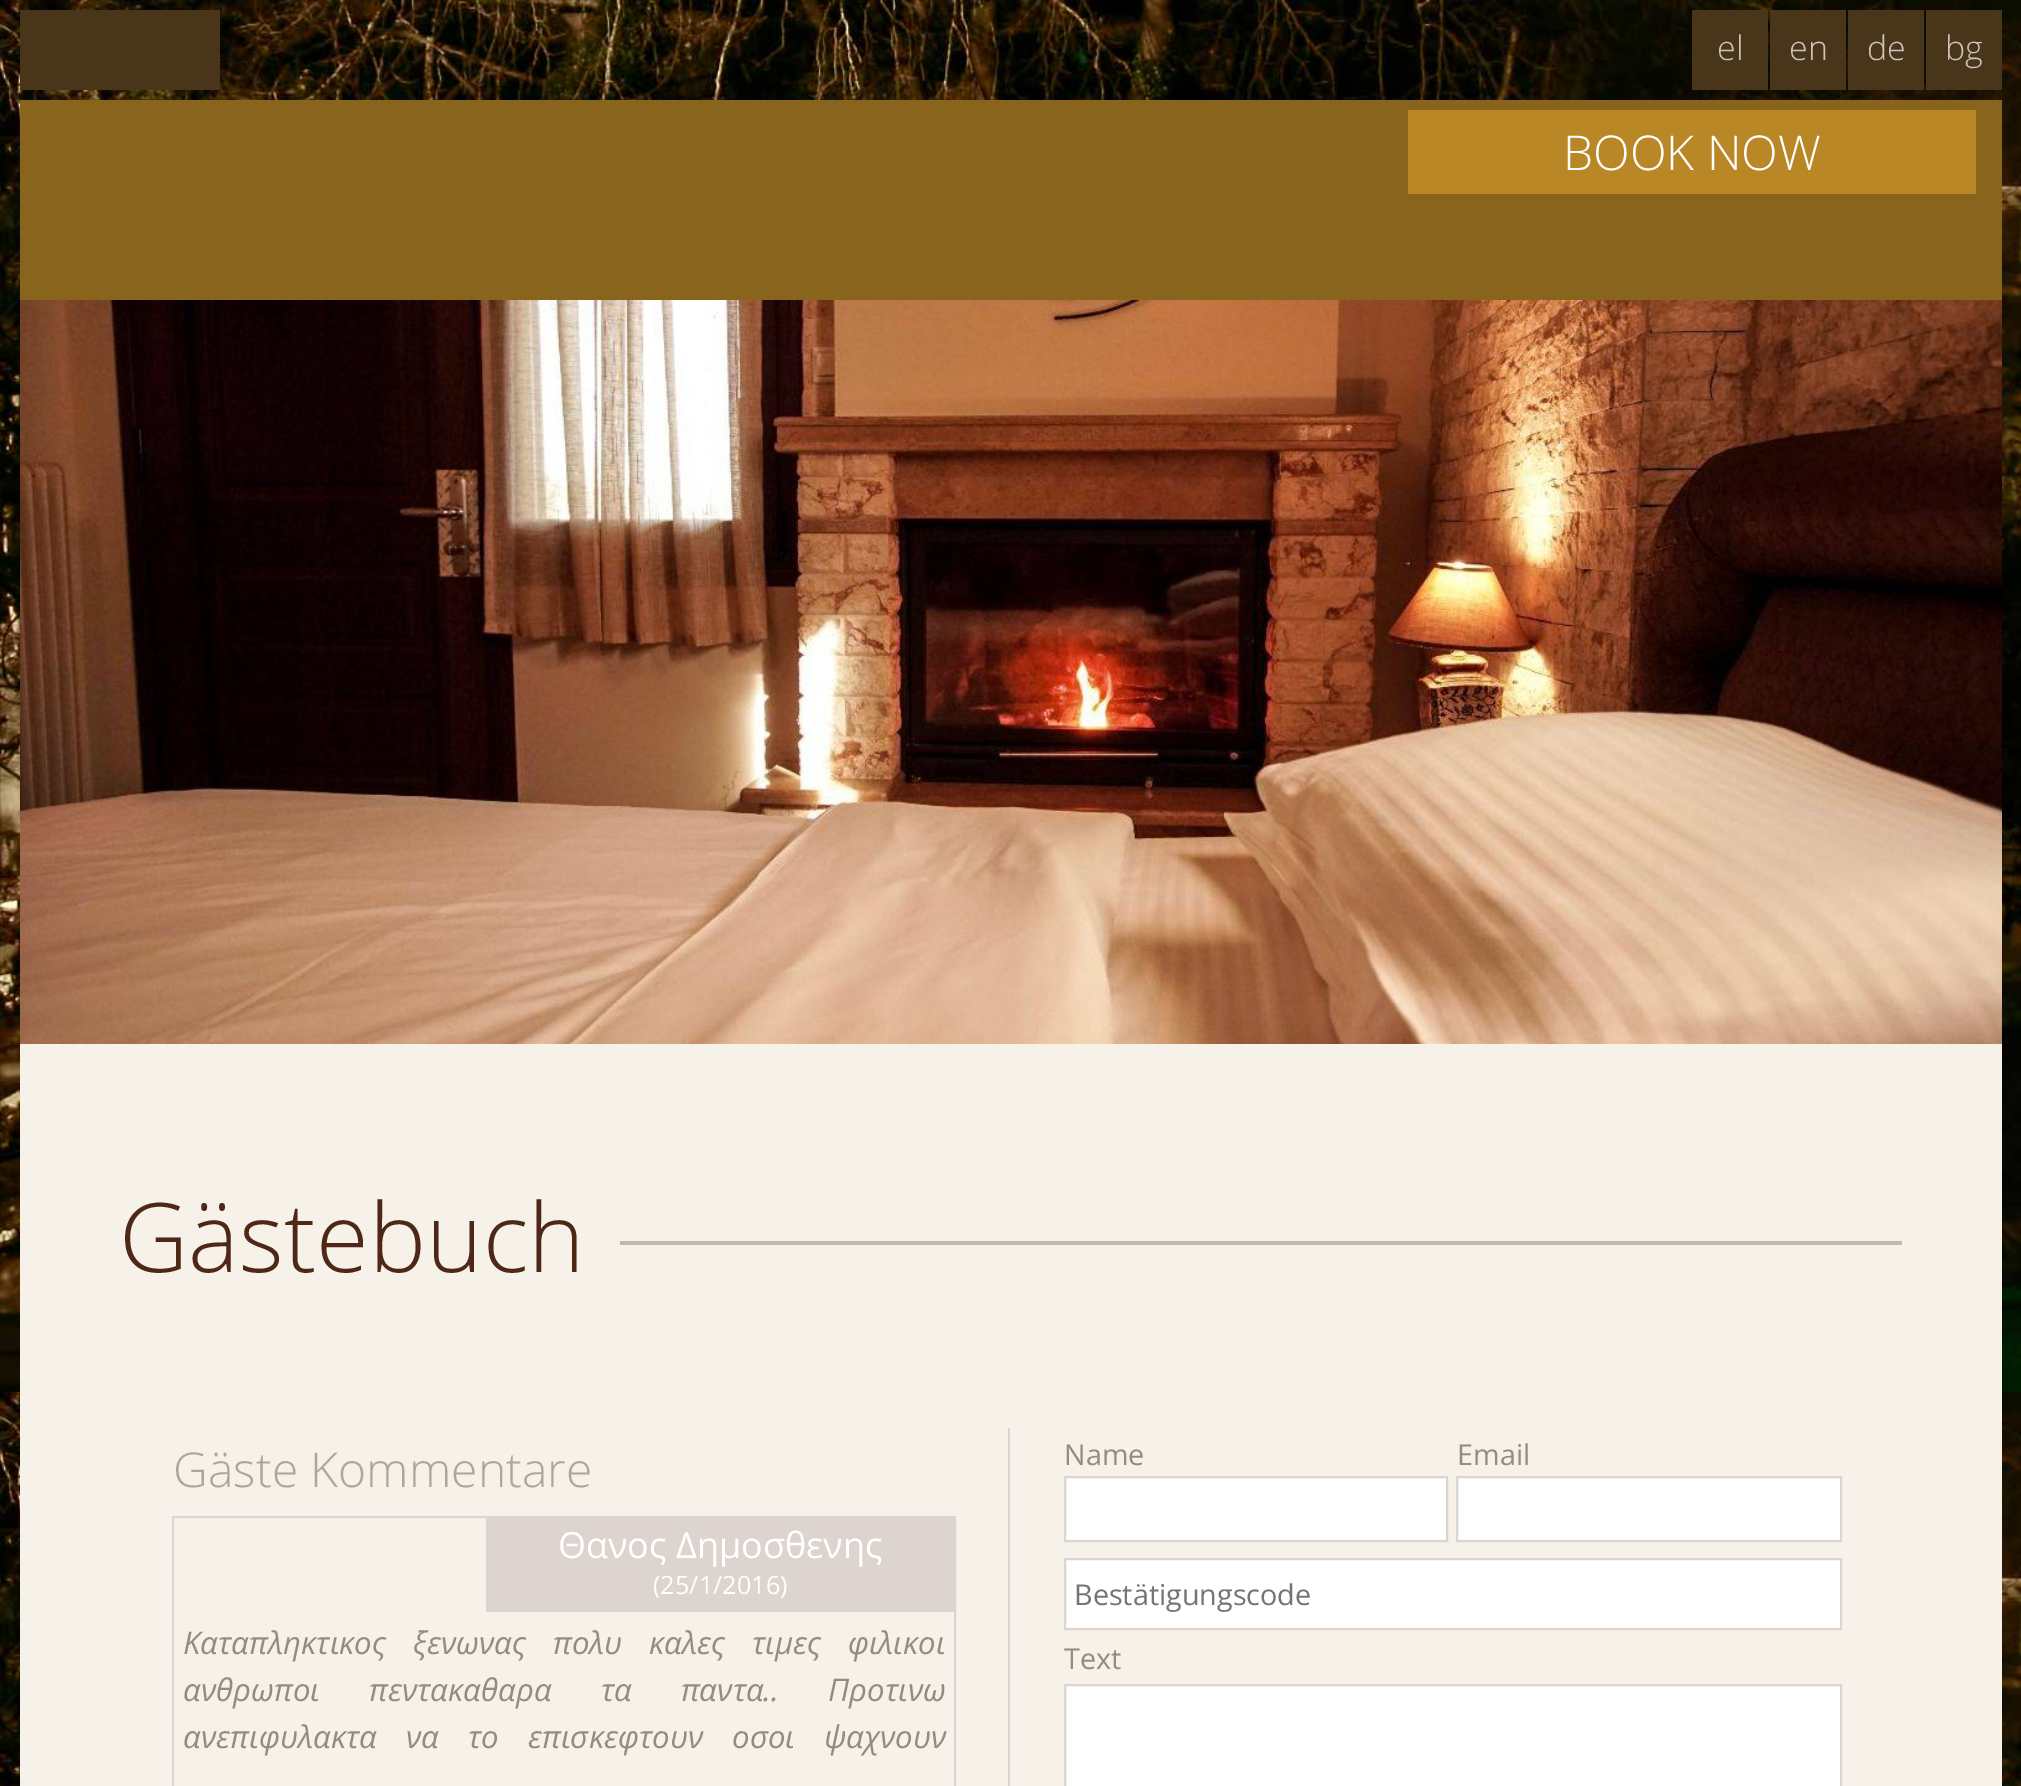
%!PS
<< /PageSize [2021 1786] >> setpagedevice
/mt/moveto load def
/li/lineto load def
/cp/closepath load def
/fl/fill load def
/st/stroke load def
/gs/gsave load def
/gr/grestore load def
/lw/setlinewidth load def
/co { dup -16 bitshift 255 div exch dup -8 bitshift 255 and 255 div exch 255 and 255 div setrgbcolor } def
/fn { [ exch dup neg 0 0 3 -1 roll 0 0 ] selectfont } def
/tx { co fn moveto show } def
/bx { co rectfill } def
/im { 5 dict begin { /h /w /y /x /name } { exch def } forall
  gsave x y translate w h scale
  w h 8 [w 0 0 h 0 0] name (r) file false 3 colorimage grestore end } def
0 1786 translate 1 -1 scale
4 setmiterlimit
0 0 2021 1786 16#FFFFFF bx
(media/1.raw) 0 0 2021 1786 im
20 10 200 80 16#49351A bx
1692 10 76 80 16#49351A bx
1770 10 76 80 16#49351A bx
1848 10 76 80 16#49351A bx
1926 10 76 80 16#49351A bx
20 100 1982 200 16#89641D bx
1408 110 568 84 16#B98726 bx
(media/2.raw) 20 300 1982 744 im
20 1044 1982 742 16#F6F2E9 bx
620 1241 1282 4 16#C0B9AF bx
1008 1428 2 358 16#DDD4CF bx
2 lw
173 1517 782 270 rectstroke
486 1518 468 94 16#DDD4CF bx
16#FFFFFF co
1065 1477 mt 1447 1477 li 1447 1541 li 1065 1541 li cp gs fl gr
16#DDD4CF co
st
16#FFFFFF co
1457 1477 mt 1841 1477 li 1841 1541 li 1457 1541 li cp gs fl gr
16#DDD4CF co
st
16#FFFFFF co
1065 1559 mt 1841 1559 li 1841 1629 li 1065 1629 li cp gs fl gr
16#DDD4CF co
st
16#FFFFFF co
1065 1685 mt 1841 1685 li 1841 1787 li 1065 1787 li cp gs fl gr
16#DDD4CF co
st
(el) 1717 60 /OpenSans-Light 34 16#CCC3BA tx
(en) 1789 60 /OpenSans-Light 34 16#CCC3BA tx
(de) 1867 60 /OpenSans-Light 34 16#CCC3BA tx
(bg) 1945 60 /OpenSans-Light 34 16#CCC3BA tx
(BOOK NOW) 1563 170 /OpenSans-Light 48 16#FFFFFF tx
(Gästebuch) 119 1272 /OpenSans-Light 96 16#4E2716 tx
(Gäste Kommentare) 173 1487 /OpenSans-Light 48 16#AEA69B tx
(Θανος Δημοσθενης) 558 1558 /OpenSans-Regular 36 16#FFFFFF tx
(\(25/1/2016\)) 653 1594 /OpenSans-Regular 25.25 16#FFFFFF tx
/OpenSans-Italic 31.2 fn
16#948B82 co
183 1654 mt 18.5 0 32 (Καταπληκτικος ξενωνας πολυ καλες τιμες φιλικοι) widthshow
183 1701 mt 41 0 32 (ανθρωποι πεντακαθαρα τα παντα.. Προτινω) widthshow
183 1748 mt 21 0 32 (ανεπιφυλακτα να το επισκεφτουν οσοι ψαχνουν) widthshow
(Name) 1064 1465 /OpenSans-Regular 28.75 16#948B82 tx
(Email) 1457 1465 /OpenSans-Regular 28.75 16#948B82 tx
(Bestätigungscode) 1074 1605 /OpenSans-Regular 28.75 16#757575 tx
(Text) 1064 1669 /OpenSans-Regular 28.75 16#948B82 tx
showpage
